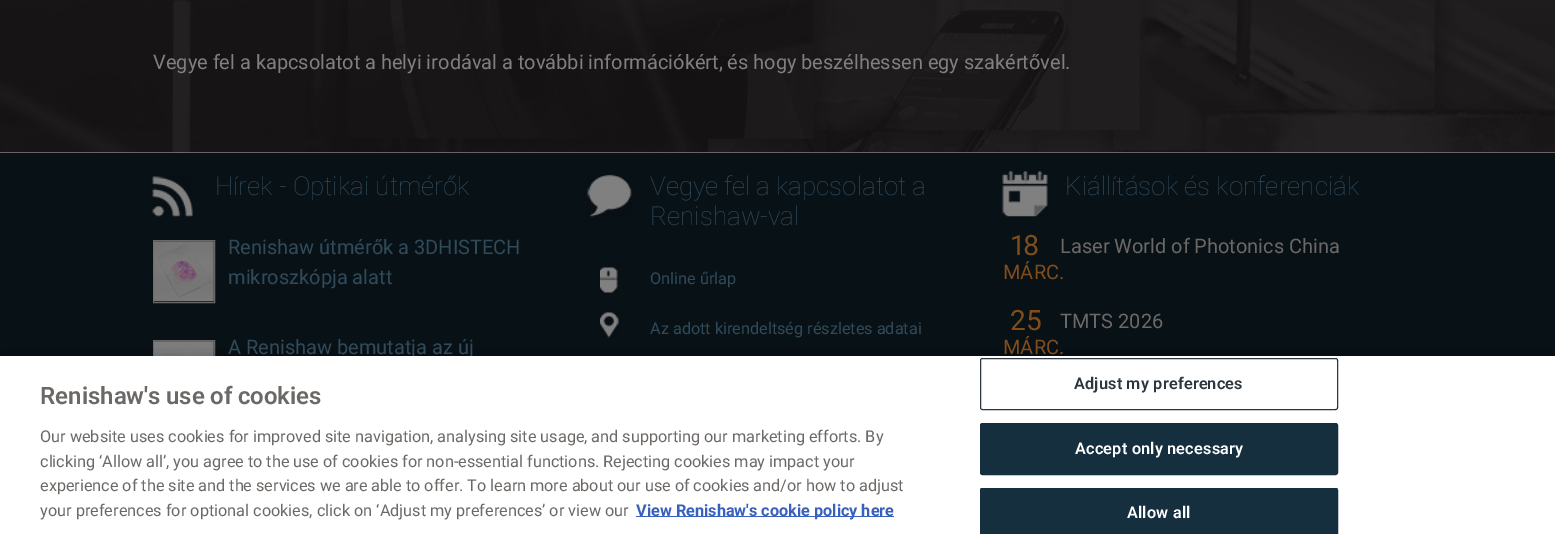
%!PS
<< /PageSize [1555 534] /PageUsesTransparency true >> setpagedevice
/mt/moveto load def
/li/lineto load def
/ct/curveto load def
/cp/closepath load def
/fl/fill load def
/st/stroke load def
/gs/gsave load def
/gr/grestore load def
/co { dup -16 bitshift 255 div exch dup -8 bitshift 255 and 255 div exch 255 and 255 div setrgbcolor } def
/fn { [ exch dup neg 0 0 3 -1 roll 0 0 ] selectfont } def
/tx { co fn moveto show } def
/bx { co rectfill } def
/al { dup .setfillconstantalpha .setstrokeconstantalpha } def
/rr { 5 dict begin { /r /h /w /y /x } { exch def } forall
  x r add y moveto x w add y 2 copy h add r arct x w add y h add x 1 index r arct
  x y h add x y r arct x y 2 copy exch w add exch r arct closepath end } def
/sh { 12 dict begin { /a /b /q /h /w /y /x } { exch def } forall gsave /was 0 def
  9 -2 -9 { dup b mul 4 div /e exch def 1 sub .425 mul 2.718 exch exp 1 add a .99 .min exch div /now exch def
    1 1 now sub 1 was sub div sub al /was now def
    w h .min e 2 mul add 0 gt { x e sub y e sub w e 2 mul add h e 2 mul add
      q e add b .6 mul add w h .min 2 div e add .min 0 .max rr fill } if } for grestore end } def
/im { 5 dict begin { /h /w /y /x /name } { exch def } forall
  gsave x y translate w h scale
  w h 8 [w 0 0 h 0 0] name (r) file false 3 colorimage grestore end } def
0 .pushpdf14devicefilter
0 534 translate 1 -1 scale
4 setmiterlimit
0 0 1555 534 16#808080 bx
(media/1.raw) 0 0 1555 153 im
0 153 1555 203 16#081116 bx
(media/2.raw) 152 176 41 41 im
16#6B6866 co
153.5 240.5 61 62 rectstroke
(media/3.raw) 153 241 61 61 im
153.5 340.5 61 62 rectstroke
(media/4.raw) 153 341 61 15 im
(media/5.raw) 587 174 45 43 im
(media/6.raw) 600 267 18 26 im
(media/7.raw) 600 312 19 26 im
(media/8.raw) 1002 171 46 46 im
16#000000 co
0 356 1555 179 0 11 .2 sh
/Roboto-Regular 20 fn
16#808080 co
153 69 mt -.1 0 32 (Vegye fel a kapcsolatot a helyi irodával a további információkért, és hogy beszélhessen egy szakértővel.) widthshow
(Hírek - Optikai útmérők) 215 195 /Roboto-Thin 26 16#304A5A tx
(Renishaw útmérők a 3DHISTECH) 228 254 /Roboto-Regular 20 16#304A5A tx
(mikroszkópja alatt) 228 284 /Roboto-Regular 20 16#304A5A tx
(A Renishaw bemutatja az új) 228 354 /Roboto-Regular 20 16#304A5A tx
/Roboto-Thin 26 fn
650 195 mt -.5 0 32 (Vegye fel a kapcsolatot a) widthshow
(Renishaw-val) 650 225 /Roboto-Thin 26 16#304A5A tx
(Online űrlap) 650 284 /Roboto-Regular 16.25 16#304A5A tx
(Az adott kirendeltség részletes adatai) 650 334 /Roboto-Regular 16.25 16#304A5A tx
(Kiállítások és konferenciák) 1065 195 /Roboto-Thin 26 16#304A5A tx
(18) 1011 255 /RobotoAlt-Regular 28 16#804D1A tx
(MÁRC.) 1003 279 /Roboto-Regular 20 16#804D1A tx
16#6B6866 co
1060 253 mt -.1 0 32 (Laser World of Photonics China) widthshow
(25) 1010 330 /Roboto-Regular 28 16#804D1A tx
(MÁRC.) 1003 354 /Roboto-Regular 20 16#804D1A tx
(TMTS 2026) 1060 328 /Roboto-Regular 20 16#6B6866 tx
0 356 1555 178 16#FFFFFF bx
/Roboto-SemiBold 24 fn
16#6B6866 co
40 404 mt -.5 0 32 (Renishaw's use of cookies) widthshow
(Our website uses cookies for improved site navigation, analysing site usage, and supporting our marketing efforts. By) 40 442 /Roboto-Regular 16.25 16#6B6866 tx
40 467 mt -.1 0 32 (clicking ‘Allow all’, you agree to the use of cookies for non-essential functions. Rejecting cookies may impact your) widthshow
40 491 mt -.1 0 32 (experience of the site and the services we are able to offer. To learn more about our use of cookies and/or how to adjust) widthshow
40 516 mt .1 0 32 (your preferences for optional cookies, click on ‘Adjust my preferences’ or view our) widthshow
636 516 258 1 16#3860BE bx
(View Renishaw's cookie policy here) 636 516 /Roboto-Bold 16.25 16#3860BE tx
16#2C363F co
980.5 358.5 357 51 2 rr st
/Roboto-SemiBold 16.25 fn
1074 389 mt .2 0 (Adjust my preferences) ashow
16#152F3F co
980.5 423.5 357 51 2 rr gs fl gr
st
16#FFFFFF co
1075 454 mt .2 0 (Accept only necessary) ashow
16#152F3F co
982.5 488 mt 1335.5 488 li 1337 488 1338 489 1338 490.5 ct 1338 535 li 980 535 li 980 490.5 li 980 489 981 488 982.5 488 ct cp fl
980.5 488.5 357 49 2 rr st
16#FFFFFF co
1127 518 mt .2 0 (Allow all) ashow
.poppdf14devicefilter showpage
